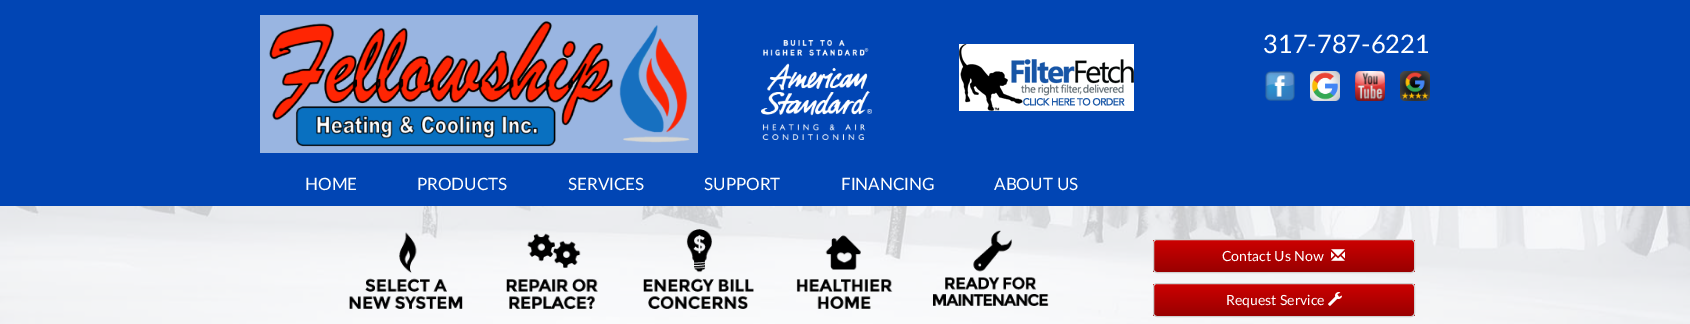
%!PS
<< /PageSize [1690 324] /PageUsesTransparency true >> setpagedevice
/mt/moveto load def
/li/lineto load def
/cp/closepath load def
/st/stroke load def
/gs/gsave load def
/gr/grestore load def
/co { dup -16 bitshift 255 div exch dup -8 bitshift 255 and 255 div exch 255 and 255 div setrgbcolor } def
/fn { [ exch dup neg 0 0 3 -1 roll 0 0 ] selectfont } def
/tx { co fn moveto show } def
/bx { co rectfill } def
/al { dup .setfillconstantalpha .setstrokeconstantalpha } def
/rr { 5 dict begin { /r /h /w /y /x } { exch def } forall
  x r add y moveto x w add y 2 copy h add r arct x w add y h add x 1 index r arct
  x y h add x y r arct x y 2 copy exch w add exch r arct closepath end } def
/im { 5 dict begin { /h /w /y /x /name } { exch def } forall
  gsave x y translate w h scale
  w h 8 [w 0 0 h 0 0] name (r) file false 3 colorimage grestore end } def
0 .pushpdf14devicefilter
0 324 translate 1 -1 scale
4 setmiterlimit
0 0 1690 324 16#FFFFFF bx
(media/1.raw) 0 206 1690 118 im
0 0 1690 206 16#0145B4 bx
260 15 438 138 16#99B5E1 bx
(media/2.raw) 269 21 421 126 im
(media/3.raw) 761 40 111 100 im
(media/4.raw) 959 44 175 67 im
(media/5.raw) 1265 71 30 30 im
(media/6.raw) 1310 71 30 30 im
(media/7.raw) 1355 71 30 30 im
(media/8.raw) 1400 71 30 30 im
0.8 al
0 206 1690 118 16#FFFFFF bx
1 al
(media/9.raw) 349 232 114 77 im
(media/10.raw) 506 233 92 76 im
(media/11.raw) 643 229 111 80 im
(media/12.raw) 796 235 97 74 im
(media/13.raw) 933 230 116 76 im
gs
1153 239 262 34 4 rr clip newpath
gs 1153 240 mt 1415 240 li 1415 272 li 1153 272 li cp clip newpath
<< /ShadingType 2 /ColorSpace /DeviceRGB /Coords [1284 240 1284 272] /Extend [true true] /Function << /FunctionType 2 /Domain [0 1] /C0 [.8 0 0] /C1 [.6 0 0] /N 1 >> >> shfill gr
gr
16#D0D0D0 co
1153.5 239.5 261 33 3.5 rr st
(media/14.raw) 1331 249 14 12 im
gs
1153 283 262 34 4 rr clip newpath
gs 1153 284 mt 1415 284 li 1415 316 li 1153 316 li cp clip newpath
<< /ShadingType 2 /ColorSpace /DeviceRGB /Coords [1284 284 1284 316] /Extend [true true] /Function << /FunctionType 2 /Domain [0 1] /C0 [.8 0 0] /C1 [.6 0 0] /N 1 >> >> shfill gr
gr
1153.5 283.5 261 33 3.5 rr st
(media/15.raw) 1328 292 14 14 im
(317-787-6221) 1263 53 /Lato-Regular 25.5 16#FFFFFF tx
(HOME) 305 190 /Lato-Regular 17 16#FFFFFF tx
(PRODUCTS) 417 190 /Lato-Regular 17 16#FFFFFF tx
(SERVICES) 568 190 /Lato-Regular 17 16#FFFFFF tx
(SUPPORT) 704 190 /Lato-Regular 17 16#FFFFFF tx
(FINANCING) 841 190 /Lato-Regular 17 16#FFFFFF tx
(ABOUT US) 994 190 /Lato-Regular 17 16#FFFFFF tx
(Contact Us Now) 1222 261 /Lato-Regular 14 16#FFFFFF tx
(Request Service) 1226 305 /Lato-Regular 14 16#FFFFFF tx
.poppdf14devicefilter showpage
